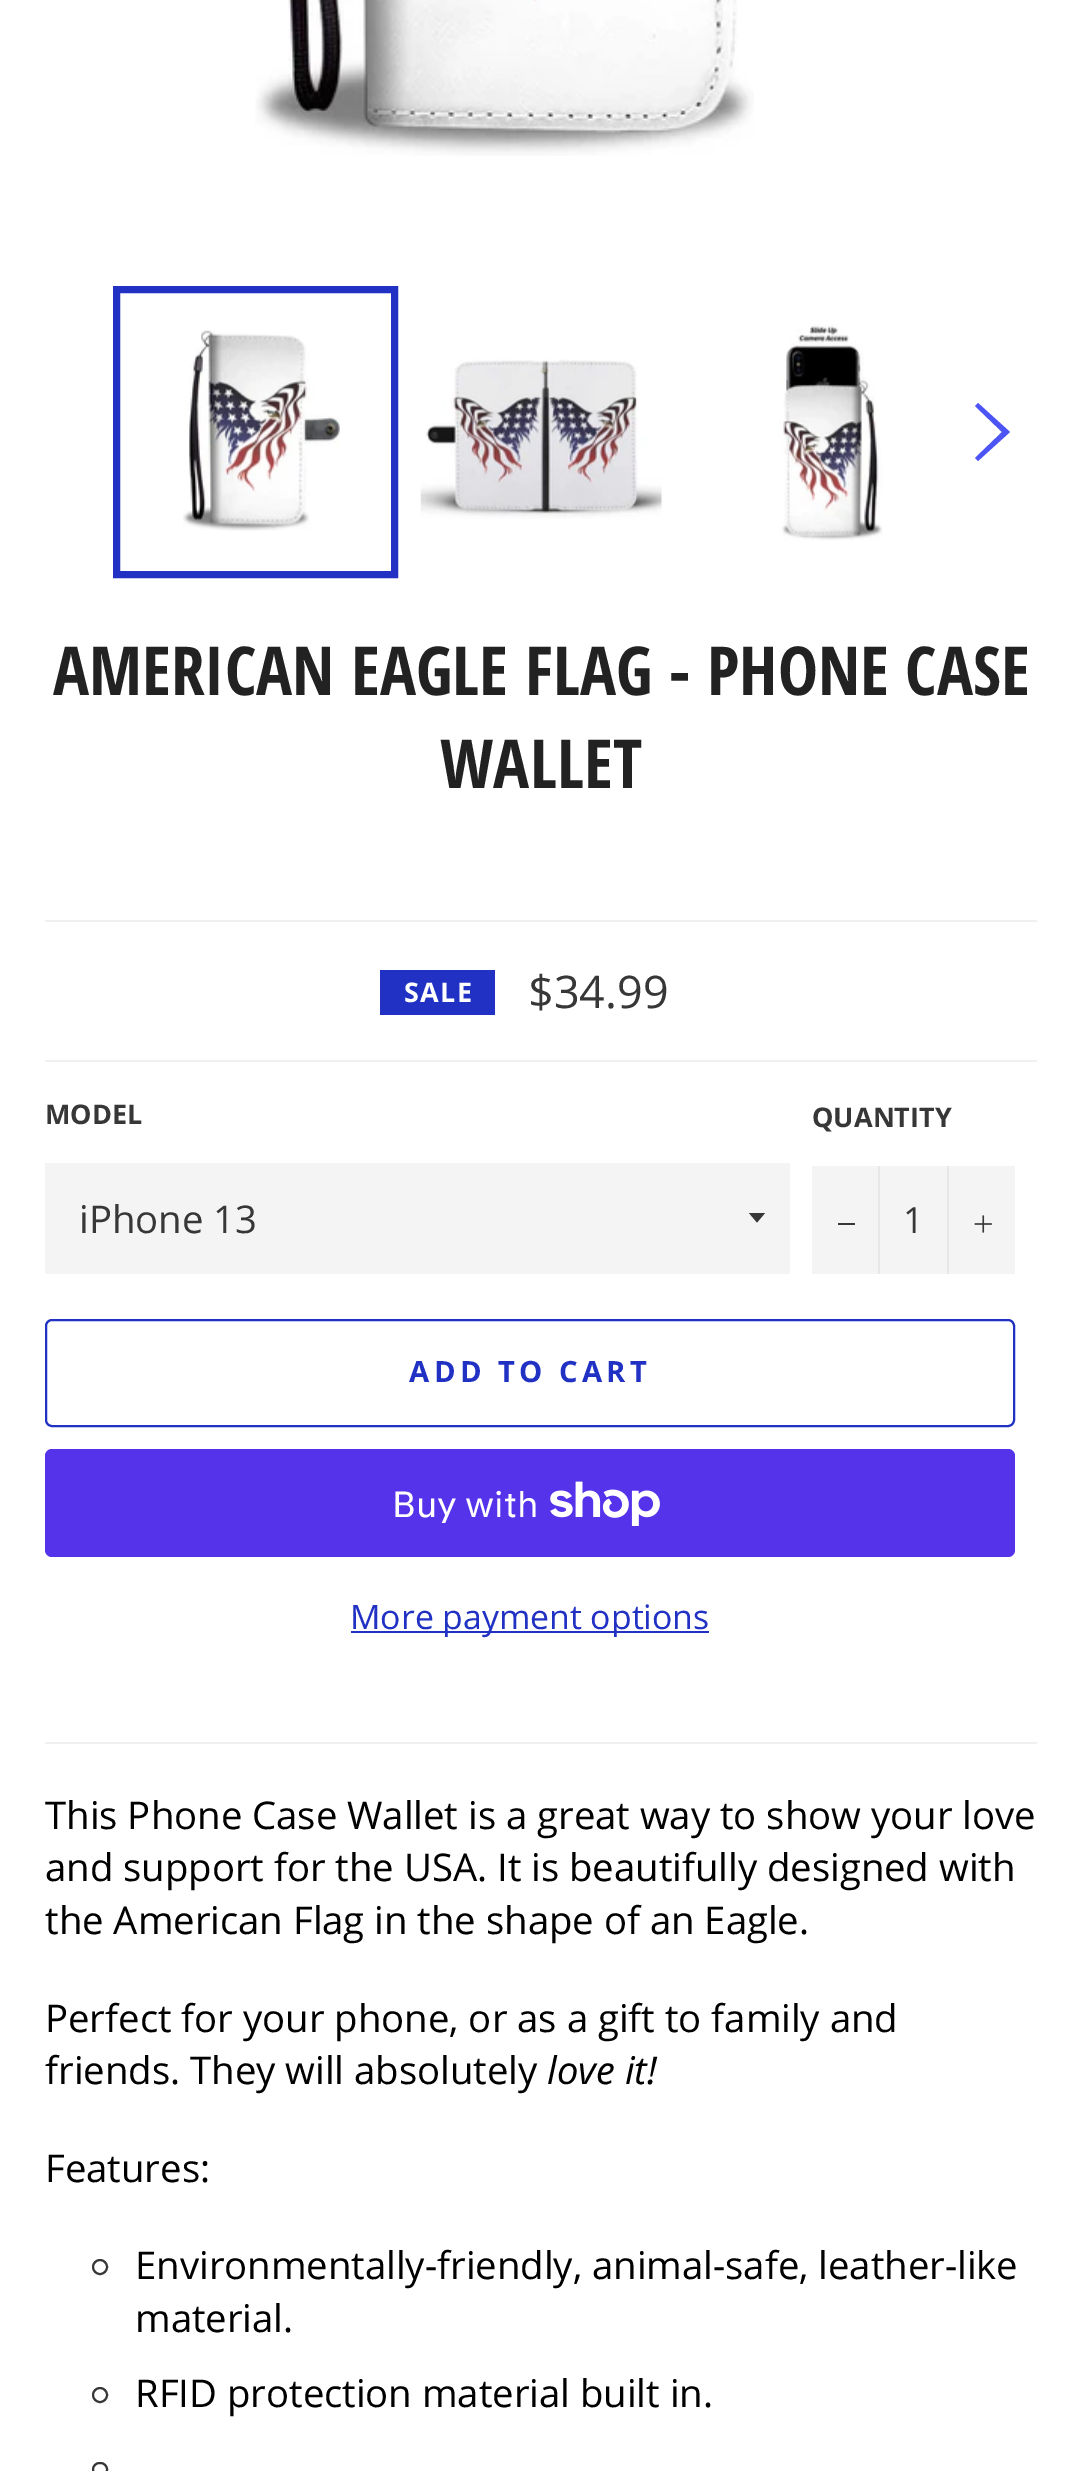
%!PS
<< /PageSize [1082 2471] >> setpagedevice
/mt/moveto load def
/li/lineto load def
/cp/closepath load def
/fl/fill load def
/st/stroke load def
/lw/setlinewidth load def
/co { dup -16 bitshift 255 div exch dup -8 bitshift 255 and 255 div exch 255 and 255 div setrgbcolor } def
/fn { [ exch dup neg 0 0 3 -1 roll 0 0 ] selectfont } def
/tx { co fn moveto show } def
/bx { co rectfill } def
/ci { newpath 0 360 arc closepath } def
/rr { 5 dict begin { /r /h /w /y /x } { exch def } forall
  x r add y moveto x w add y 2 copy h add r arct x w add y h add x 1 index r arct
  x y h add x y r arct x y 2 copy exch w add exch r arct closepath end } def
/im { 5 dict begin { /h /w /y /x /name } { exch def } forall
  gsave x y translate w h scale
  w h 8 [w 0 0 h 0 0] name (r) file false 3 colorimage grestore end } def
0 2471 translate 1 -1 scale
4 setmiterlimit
0 0 1082 2471 16#FFFFFF bx
(media/1.raw) 255 0 499 156 im
(media/2.raw) 183 330 157 201 im
16#2031C3 co
7 lw
116.5 289.5 278 285 rectstroke
(media/3.raw) 420 359 242 160 im
(media/4.raw) 780 324 103 217 im
16#4D54F5 co
975 406 mt 978 403 li 1010 432 li 978 461 li 975 458 li 1002 432 li cp fl
45 920 992 2 16#F0F0F0 bx
380 970 115 45 16#2031C3 bx
45 1060 992 2 16#F0F0F0 bx
45 1163 745 111 16#F4F4F4 bx
16#373737 co
749 1213 mt 757 1222.5 li 765 1213 li cp fl
812 1166 203 108 16#F4F4F4 bx
878 1166 2 108 16#E7E7E7 bx
838 1223 17 2 16#373737 bx
947 1166 2 108 16#E7E7E7 bx
(media/5.raw) 974 1215 18 18 im
16#2031C3 co
2 lw
46 1320 968 106 6 rr st
16#5433EB co
45 1449 970 108 7 rr fl
(media/6.raw) 550 1481 110 45 im
351 1631 358 2 16#2031C3 bx
45 1742 992 2 16#F0F0F0 bx
16#373737 co
100 2267 7 ci st
100 2395 7 ci st
93 2463 14 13 6.5 rr st
(AMERICAN EAGLE FLAG - PHONE CASE) 53 695 /OpenSansCondensed-Bold 67.5 16#222222 tx
(WALLET) 440 788 /OpenSansCondensed-Bold 67.5 16#222222 tx
/OpenSans-Bold 27 fn
16#FFFFFF co
404 1002 mt 1.5 0 (SALE) ashow
($34.99) 528 1008 /OpenSans-Regular 45 16#373737 tx
(MODEL) 45 1124 /OpenSans-Bold 27 16#373737 tx
(iPhone 13) 79 1233 /OpenSans-Regular 38.25 16#373737 tx
(QUANTITY) 812 1127 /OpenSans-Bold 27 16#373737 tx
(1) 903 1233 /OpenSans-Regular 36 16#373737 tx
/OpenSans-Bold 29.25 fn
16#2031C3 co
409 1382 mt 4.4 0 (ADD TO CART) ashow
(Buy with) 392 1517 /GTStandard-Regular 36 16#FFFFFF tx
(More payment options) 350 1629 /OpenSans-Regular 33.75 16#2031C3 tx
(This Phone Case Wallet is a great way to show your love) 45 1829 /OpenSans-Regular 38.25 16#000000 tx
(and support for the USA. It is beautifully designed with) 45 1881 /OpenSans-Regular 38.25 16#000000 tx
(the American Flag in the shape of an Eagle.) 45 1934 /OpenSans-Regular 38.25 16#000000 tx
(Perfect for your phone, or as a gift to family and) 45 2032 /OpenSans-Regular 38.25 16#000000 tx
(friends. They will absolutely) 45 2084 /OpenSans-Regular 38.25 16#000000 tx
(love it!) 547 2084 /OpenSans-Italic 38.25 16#000000 tx
(Features:) 45 2182 /OpenSans-Regular 38.25 16#000000 tx
(Environmentally-friendly, animal-safe, leather-like) 135 2279 /OpenSans-Regular 38.25 16#000000 tx
(material.) 135 2332 /OpenSans-Regular 38.25 16#000000 tx
(RFID protection material built in.) 135 2407 /OpenSans-Regular 38.25 16#000000 tx
showpage
